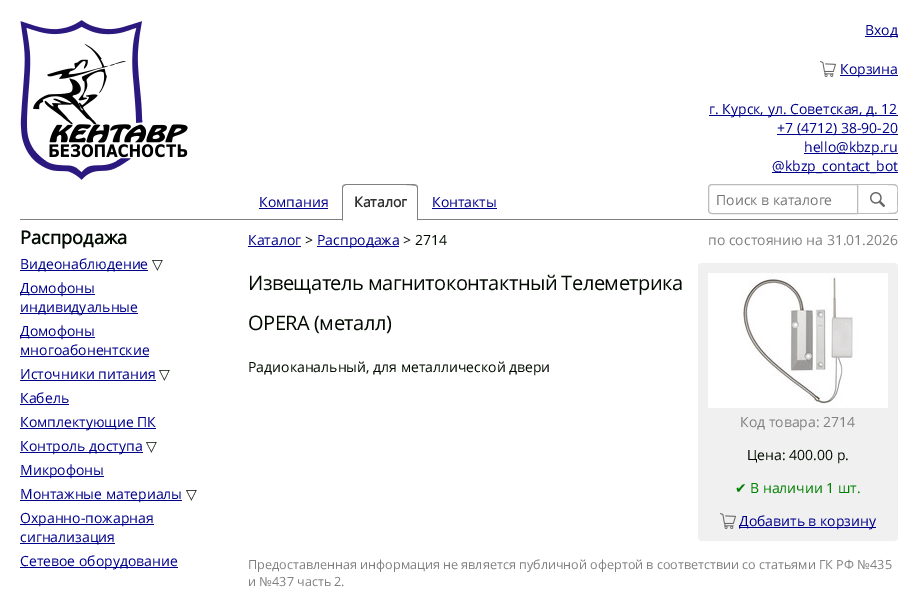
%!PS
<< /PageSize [918 591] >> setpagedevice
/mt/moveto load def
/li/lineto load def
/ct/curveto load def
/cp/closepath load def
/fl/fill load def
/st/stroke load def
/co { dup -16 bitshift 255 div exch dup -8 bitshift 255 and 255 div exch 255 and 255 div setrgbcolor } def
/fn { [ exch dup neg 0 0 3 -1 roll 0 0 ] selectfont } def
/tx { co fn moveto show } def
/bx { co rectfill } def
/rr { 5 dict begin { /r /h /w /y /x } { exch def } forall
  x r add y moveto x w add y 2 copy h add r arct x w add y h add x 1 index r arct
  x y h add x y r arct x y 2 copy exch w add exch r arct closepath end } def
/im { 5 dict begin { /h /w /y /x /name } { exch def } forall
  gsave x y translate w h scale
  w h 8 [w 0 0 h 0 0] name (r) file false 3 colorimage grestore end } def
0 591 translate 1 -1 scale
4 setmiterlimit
0 0 918 591 16#FFFFFF bx
(media/1.raw) 20 20 168 160 im
865 36 33 1 16#00008B bx
(media/2.raw) 820 61 16 16 im
840 75 58 1 16#00008B bx
709 115 189 1 16#00008B bx
777 134 121 1 16#00008B bx
804 153 94 1 16#00008B bx
772 172 126 1 16#00008B bx
20 219 878 1 16#808080 bx
259 208 69 1 16#00008B bx
16#FFFFFF co
346 184 mt 414 184 li 416 184 418 186 418 188 ct 418 221 li 342 221 li 342 188 li 342 186 344 184 346 184 ct cp fl
16#808080 co
346 184 mt 343 185 li 344 186 li 346 185 li 357 185 li 364 185 414 184 416 186 ct 417 185 li 414 184 li cp fl
418 221 mt 418 188 li 418 187 417.5 186 417 185 ct 416 186 li 417 186 417 187 417 188 ct 417 220 li cp fl
16#FFFFFF co
418 221 mt 417 220 li 343 220 li 342 221 li cp fl
16#808080 co
342 221 mt 343 220 li 343 188 li 343 187 343 186 344 186 ct 343 185 li 342.5 186 342 187 342 188 ct cp fl
432 208 65 1 16#00008B bx
16#BBBBBB co
712 184.5 mt 857.5 184.5 li 857.5 213.5 li 712 213.5 li 710 213.5 708.5 212 708.5 210 ct 708.5 188 li 708.5 186 710 184.5 712 184.5 ct cp st
858 184 mt 894 184 li 896 184 898 186 898 188 ct 898 210 li 898 212 896 214 894 214 ct 858 214 li cp 858 185 mt 888 185 li 900 185 897 186 897 199 ct 897 212 900 213 888 213 ct 858 213 li cp eofill
(media/3.raw) 870 192 15 15 im
20 270 128 1 16#00008B bx
20 294 75 1 16#00008B bx
20 313 118 1 16#00008B bx
20 337 75 1 16#00008B bx
20 356 129 1 16#00008B bx
20 380 136 1 16#00008B bx
20 404 49 1 16#00008B bx
20 428 136 1 16#00008B bx
20 452 123 1 16#00008B bx
20 476 84 1 16#00008B bx
20 500 162 1 16#00008B bx
20 524 134 1 16#00008B bx
20 543 95 1 16#00008B bx
20 567 158 1 16#00008B bx
248 246 53 1 16#00008B bx
317 246 82 1 16#00008B bx
16#F0F0F0 co
698 263 200 278 4 rr fl
(media/4.raw) 708 273 180 135 im
(media/5.raw) 720 513 16 16 im
739 527 137 1 16#00008B bx
(Вход) 865 35 /OpenSans-Regular 14 16#00008B tx
(Корзина) 840 74 /OpenSans-Regular 14 16#00008B tx
(г. Курск, ул. Советская, д. 12) 709 114 /OpenSans-Regular 14 16#00008B tx
(+7 \(4712\) 38-90-20) 777 133 /OpenSans-Regular 14 16#00008B tx
(hello@kbzp.ru) 804 152 /OpenSans-Regular 14 16#00008B tx
(@kbzp_contact_bot) 772 171 /OpenSans-Regular 14 16#00008B tx
(Компания) 259 207 /OpenSans-Regular 14 16#00008B tx
(Каталог) 354 207 /OpenSans-Bold 14 16#303030 tx
(Контакты) 432 207 /OpenSans-Regular 14 16#00008B tx
(Поиск в каталоге) 716 205 /OpenSans-Regular 14 16#757575 tx
(Распродажа) 20 244 /OpenSans-Bold 18.25 16#000A00 tx
(Видеонаблюдение) 20 269 /OpenSans-Regular 14 16#00008B tx
(▽) 152 269 /DejaVuSans-Regular 14 16#000A00 tx
(Домофоны) 20 293 /OpenSans-Regular 14 16#00008B tx
(индивидуальные) 20 312 /OpenSans-Regular 14 16#00008B tx
(Домофоны) 20 336 /OpenSans-Regular 14 16#00008B tx
(многоабонентские) 20 355 /OpenSans-Regular 14 16#00008B tx
(Источники питания) 20 379 /OpenSans-Regular 14 16#00008B tx
(▽) 159 379 /DejaVuSans-Regular 14 16#000A00 tx
(Кабель) 20 403 /OpenSans-Regular 14 16#00008B tx
(Комплектующие ПК) 20 427 /OpenSans-Regular 14 16#00008B tx
(Контроль доступа) 20 451 /OpenSans-Regular 14 16#00008B tx
(▽) 146 451 /DejaVuSans-Regular 14 16#000A00 tx
(Микрофоны) 20 475 /OpenSans-Regular 14 16#00008B tx
(Монтажные материалы) 20 499 /OpenSans-Regular 14 16#00008B tx
(▽) 186 499 /DejaVuSans-Regular 14 16#000A00 tx
(Охранно-пожарная) 20 523 /OpenSans-Regular 14 16#00008B tx
(сигнализация) 20 542 /OpenSans-Regular 14 16#00008B tx
(Сетевое оборудование) 20 566 /OpenSans-Regular 14 16#00008B tx
(Каталог) 248 245 /OpenSans-Regular 14 16#00008B tx
(>) 305 245 /OpenSans-Regular 14 16#000A00 tx
(Распродажа) 317 245 /OpenSans-Regular 14 16#00008B tx
(> 2714) 403 245 /OpenSans-Regular 14 16#000A00 tx
(по состоянию на 31.01.2026) 708 245 /OpenSans-Regular 14 16#808080 tx
/OpenSans-Regular 20 fn
16#000A00 co
248 290 mt -.5 0 (Извещатель магнитоконтактный Телеметрика) ashow
248 330 mt -.5 0 (OPERA \(металл\)) ashow
(Радиоканальный, для металлической двери) 248 372 /OpenSans-Regular 14 16#000A00 tx
(Код товара: 2714) 740 427 /OpenSans-Regular 14 16#808080 tx
(Цена: 400.00 р.) 747 460 /OpenSans-Regular 14 16#000A00 tx
(✔) 735 493 /DejaVuSans-Regular 14 16#008000 tx
(В наличии 1 шт.) 750 493 /OpenSans-Regular 14 16#008000 tx
(Добавить в корзину) 739 526 /OpenSans-Regular 14 16#00008B tx
(Предоставленная информация не является публичной офертой в соответствии со статьями ГК РФ №435) 248 569 /OpenSans-Regular 12.6 16#808080 tx
(и №437 часть 2.) 248 586 /OpenSans-Regular 12.6 16#808080 tx
showpage
